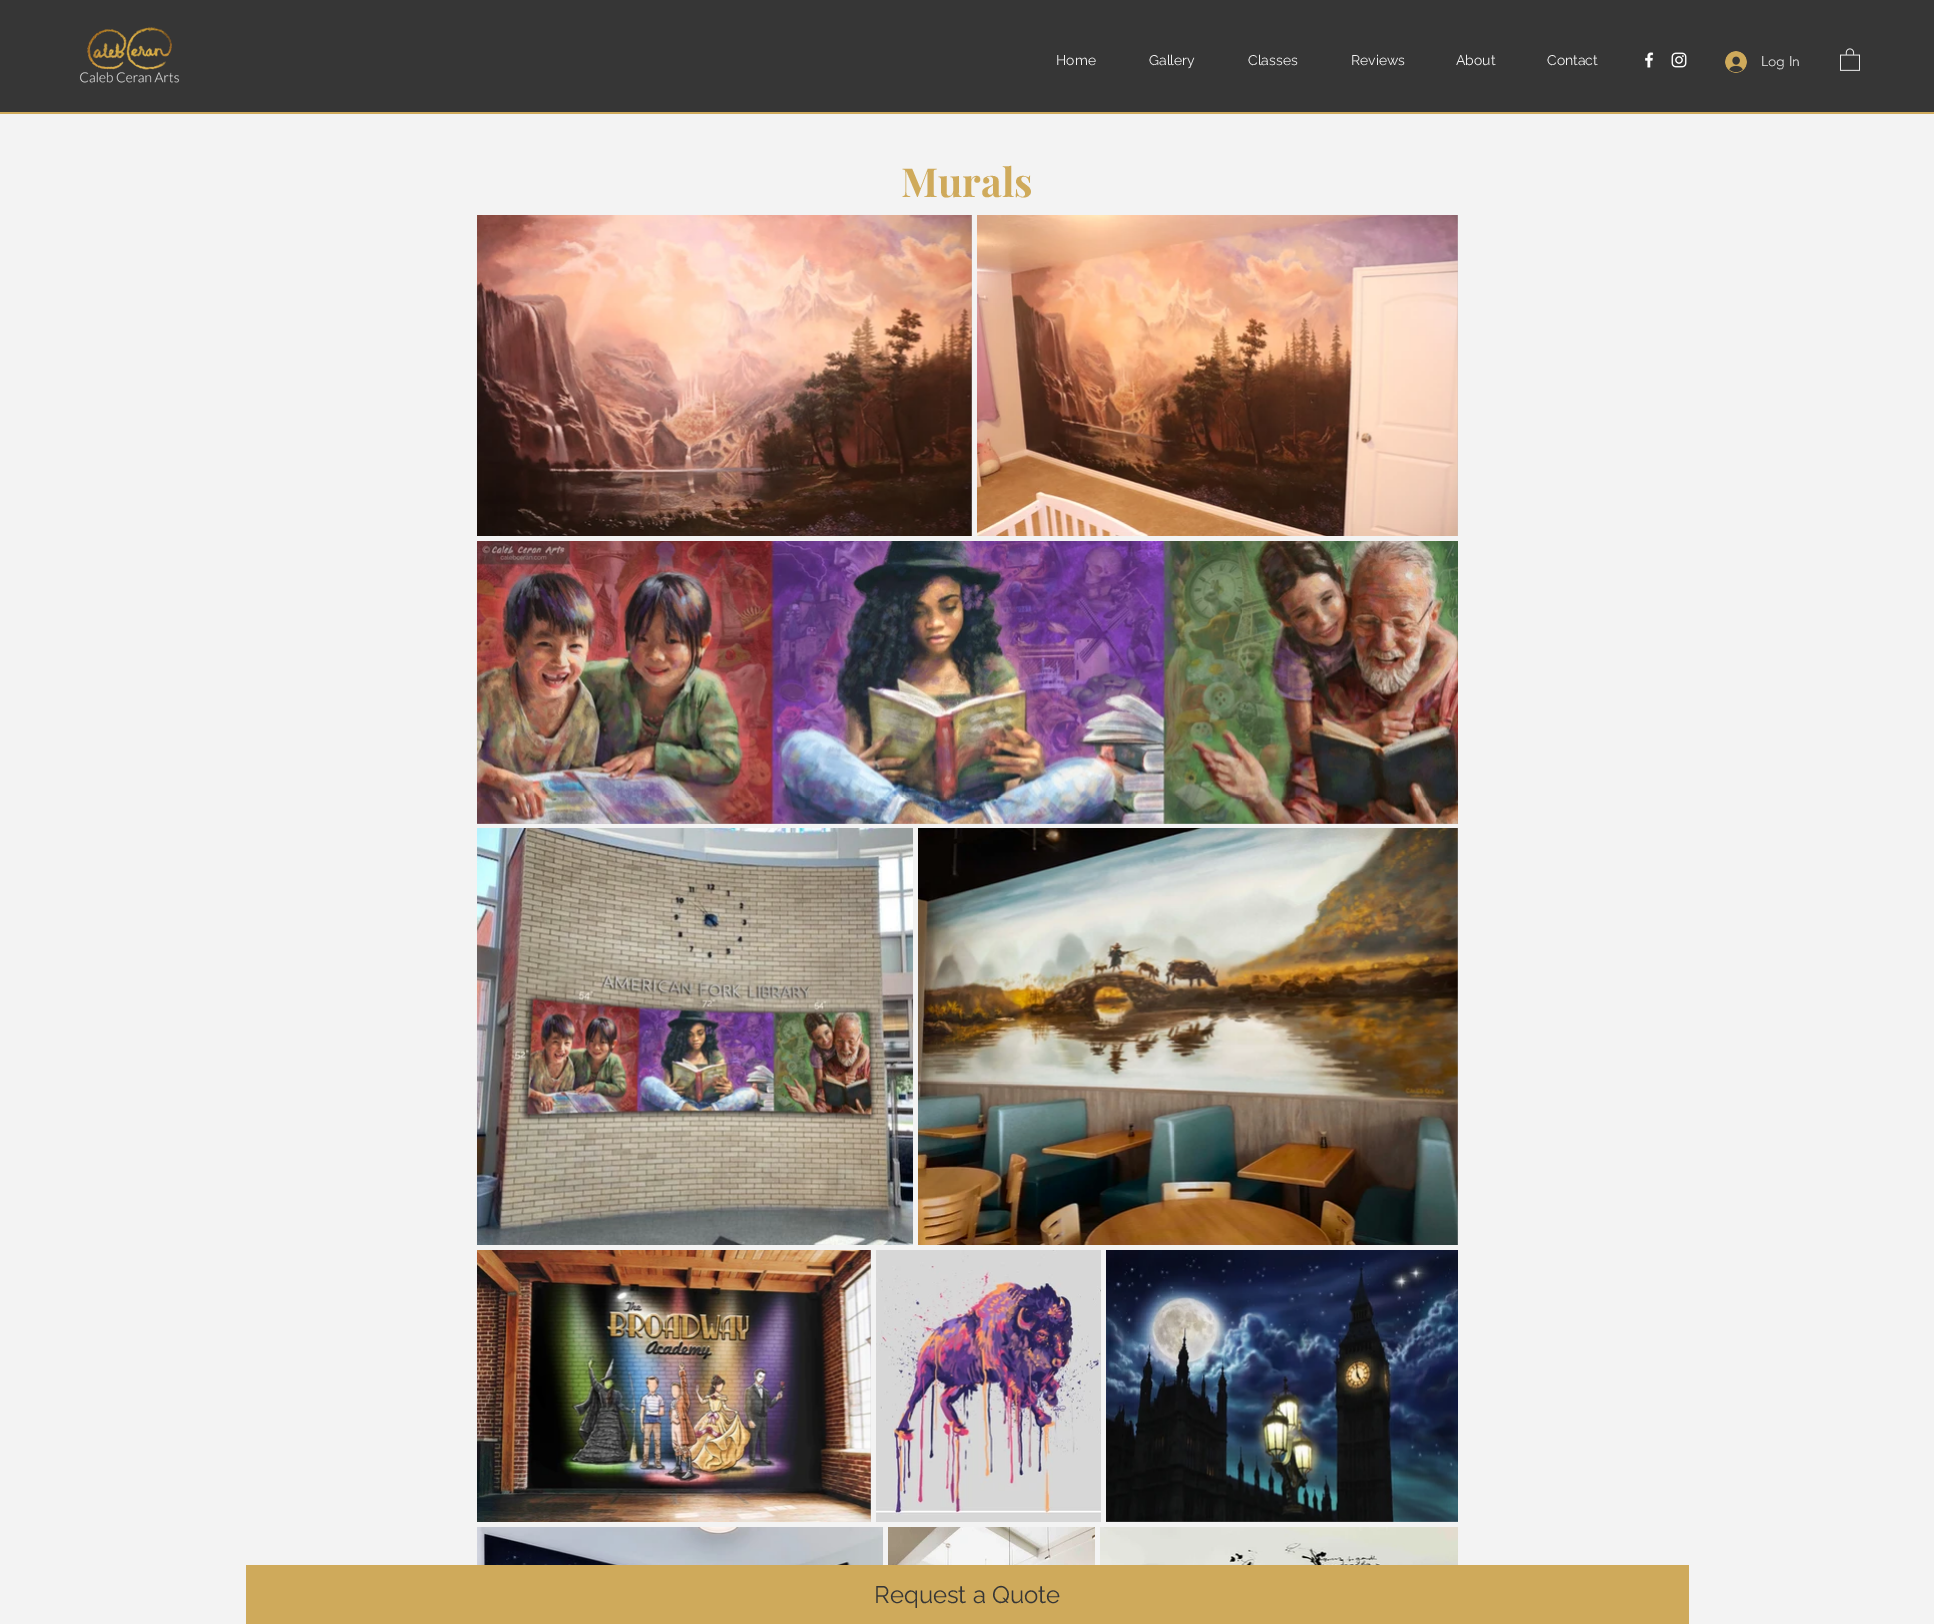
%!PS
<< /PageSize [1934 1624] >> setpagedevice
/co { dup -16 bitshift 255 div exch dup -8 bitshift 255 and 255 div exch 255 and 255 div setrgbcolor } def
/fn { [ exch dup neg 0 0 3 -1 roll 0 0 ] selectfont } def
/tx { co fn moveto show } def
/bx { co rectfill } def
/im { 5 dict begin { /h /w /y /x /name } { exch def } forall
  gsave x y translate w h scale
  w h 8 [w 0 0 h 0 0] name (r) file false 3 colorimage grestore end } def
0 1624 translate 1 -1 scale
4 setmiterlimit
0 0 1934 1624 16#363636 bx
(media/1.raw) 79 27 101 56 im
(media/2.raw) 1645 52 9 16 im
(media/3.raw) 1671 52 16 16 im
(media/4.raw) 1725 51 22 22 im
(media/5.raw) 1840 48 20 23 im
0 112 1934 2 16#CFAA5B bx
0 114 1934 1510 16#F3F3F3 bx
(media/6.raw) 477 215 495 321 im
(media/7.raw) 977 215 481 321 im
(media/8.raw) 477 541 981 283 im
(media/9.raw) 477 828 436 417 im
(media/10.raw) 918 828 540 417 im
(media/11.raw) 477 1250 394 272 im
(media/12.raw) 876 1250 225 272 im
(media/13.raw) 1106 1250 352 272 im
(media/14.raw) 477 1527 406 38 im
(media/15.raw) 888 1527 207 38 im
(media/16.raw) 1100 1527 358 38 im
246 1565 1443 59 16#CFAA5B bx
(Home) 1056 65 /Raleway-Regular 14 16#F3F3F3 tx
(Gallery) 1149 65 /Raleway-Regular 14 16#F3F3F3 tx
(Classes) 1248 65 /Raleway-Regular 14 16#F3F3F3 tx
(Reviews) 1351 65 /Raleway-Regular 14 16#F3F3F3 tx
(About) 1456 65 /Raleway-Regular 14 16#F3F3F3 tx
(Contact) 1547 65 /Raleway-Regular 14 16#F3F3F3 tx
(Log In) 1761 66 /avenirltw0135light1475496-Light 14 16#F3F3F3 tx
(Murals) 901 197 /PlayfairDisplay-Bold 40 16#CFAA5B tx
(Request a Quote) 874 1603 /Raleway-Regular 24 16#363636 tx
showpage
